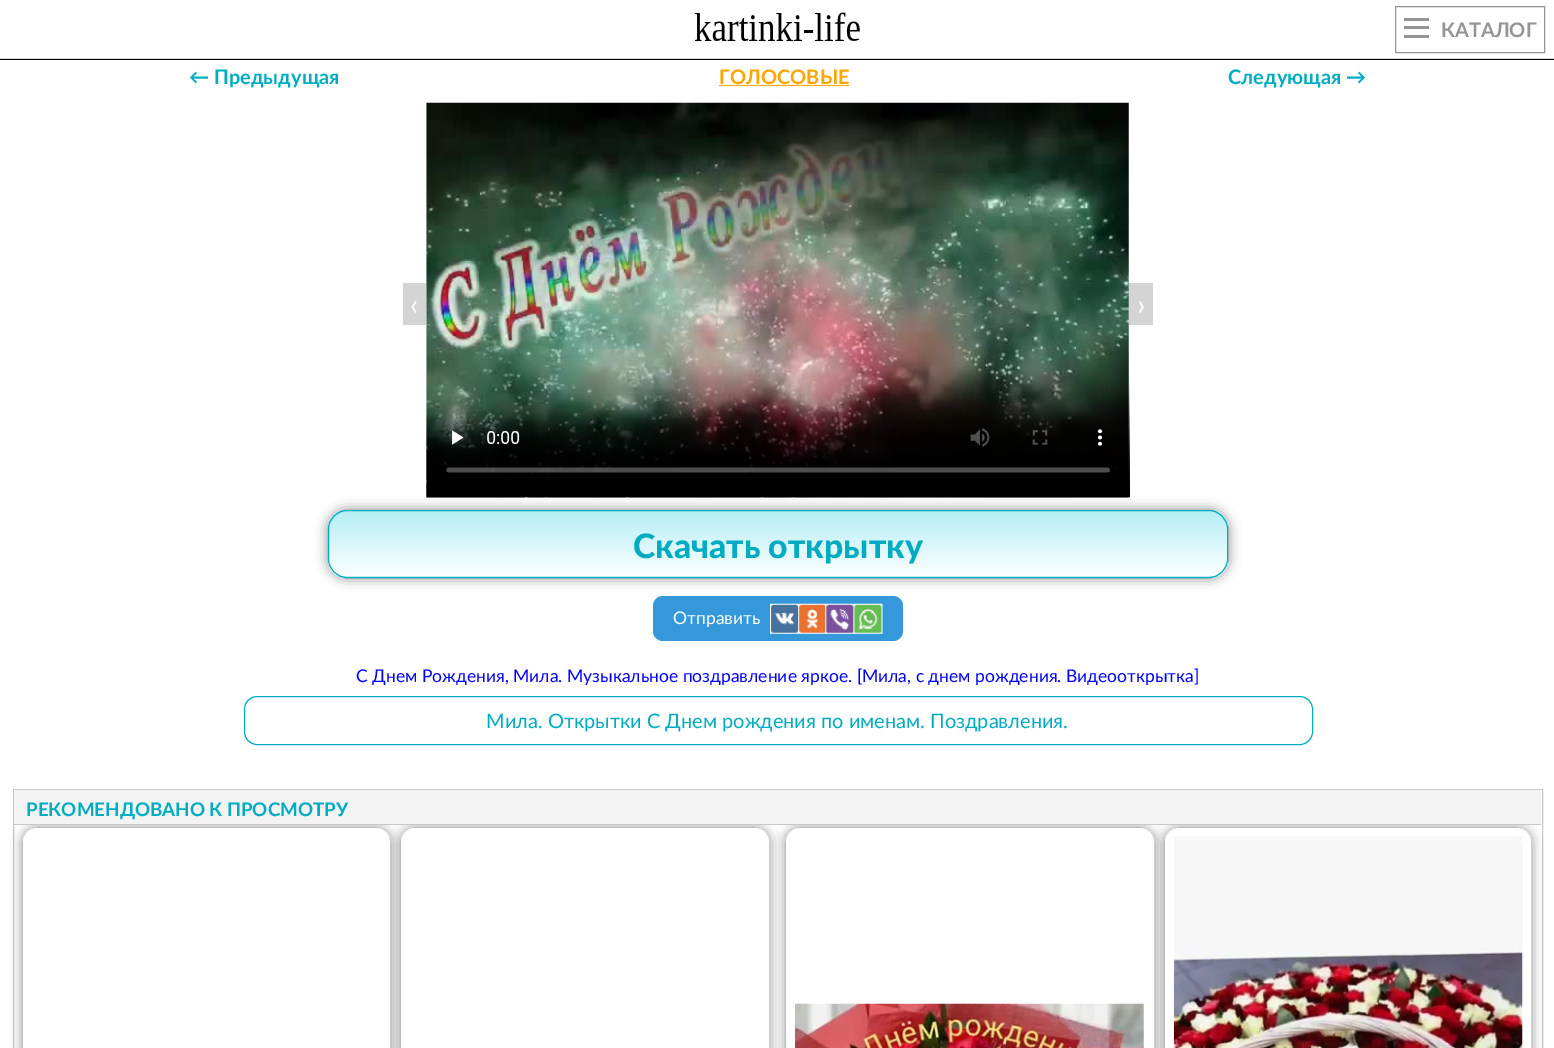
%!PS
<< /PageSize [1554 1048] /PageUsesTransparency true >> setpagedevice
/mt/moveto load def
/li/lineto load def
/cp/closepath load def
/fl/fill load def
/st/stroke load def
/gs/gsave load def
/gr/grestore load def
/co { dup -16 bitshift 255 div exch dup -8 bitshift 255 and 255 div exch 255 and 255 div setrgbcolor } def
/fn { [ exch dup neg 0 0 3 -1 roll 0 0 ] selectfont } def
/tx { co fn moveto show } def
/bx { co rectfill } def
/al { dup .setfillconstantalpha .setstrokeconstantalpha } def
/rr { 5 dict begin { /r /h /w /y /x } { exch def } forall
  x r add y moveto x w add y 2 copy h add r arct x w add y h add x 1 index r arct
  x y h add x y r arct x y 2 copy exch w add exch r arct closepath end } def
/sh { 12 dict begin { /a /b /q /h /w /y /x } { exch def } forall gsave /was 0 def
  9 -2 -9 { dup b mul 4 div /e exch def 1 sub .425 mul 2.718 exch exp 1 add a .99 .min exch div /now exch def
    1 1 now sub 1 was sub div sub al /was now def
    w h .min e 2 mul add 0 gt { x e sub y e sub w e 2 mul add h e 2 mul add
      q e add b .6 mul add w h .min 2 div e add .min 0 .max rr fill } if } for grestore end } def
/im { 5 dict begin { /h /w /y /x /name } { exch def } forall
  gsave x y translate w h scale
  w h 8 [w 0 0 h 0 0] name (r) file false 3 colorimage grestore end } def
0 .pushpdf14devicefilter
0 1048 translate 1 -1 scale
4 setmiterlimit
0 0 1554 1048 16#FFFFFF bx
0 59 1554 1 16#000000 bx
(media/1.raw) 694 12 166 29 im
16#949494 co
1395.5 6.5 149 46 rectstroke
1404 18 25 3 16#949494 bx
1404 26 25 3 16#949494 bx
1404 35 25 3 16#949494 bx
0 58 1554 1 16#D3D3D3 bx
719 85 130 1 16#FFA500 bx
403 283 23 42 16#D4D4D4 bx
1129 283 24 42 16#D4D4D4 bx
16#000000 co
328 510 900 68 19 6 .5 sh
(media/2.raw) 426 102 704 396 im
gs
328 510 900 68 19 rr clip newpath
gs 328 511 mt 1228 511 li 1228 576 li 328 576 li cp clip newpath
<< /ShadingType 2 /ColorSpace /DeviceRGB /Coords [778 511 778 576] /Extend [true true] /Function << /FunctionType 2 /Domain [0 1] /C0 [.71 .933 .965] /C1 [.988 1 1] /N 1 >> >> shfill gr
gs 338 576 mt 1218 576 li 1218 578 li 338 578 li cp clip newpath
<< /ShadingType 2 /ColorSpace /DeviceRGB /Coords [778 576 778 641] /Extend [true true] /Function << /FunctionType 2 /Domain [0 1] /C0 [.71 .933 .965] /C1 [.988 1 1] /N 1 >> >> shfill gr
gr
16#00ACC1 co
328.5 510.5 899 67 18.5 rr st
16#3498DB co
653 596 250 45 10 rr fl
(media/3.raw) 770 603 113 31 im
16#00ACC1 co
244.5 696.5 1068 48 12.5 rr st
16#C7C7C7 co
13.5 789.5 1529 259 rectstroke
16#000000 co
23 828 367 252 14 6 .5 sh
16#FFFFFF co
23.5 828.5 366 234 13.5 rr gs fl gr
st
16#000000 co
401 828 368 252 14 6 .5 sh
16#FFFFFF co
401.5 828.5 367 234 13.5 rr gs fl gr
st
16#000000 co
786 828 368 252 14 6 .5 sh
16#FFFFFF co
786.5 828.5 367 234 13.5 rr gs fl gr
st
16#000000 co
1165 828 366 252 14 6 .5 sh
14 790 1527 34 16#F3F3F3 bx
14 824 1527 1 16#C7C7C7 bx
(media/4.raw) 795 1003 349 45 im
16#FFFFFF co
1165.5 828.5 365 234 13.5 rr gs fl gr
st
(media/5.raw) 1173 836 350 212 im
(КАТАЛОГ) 1441 37 /Lato-Bold 20 16#949494 tx
(← Предыдущая) 189 84 /Lato-Bold 20 16#00ACC1 tx
(ГОЛОСОВЫЕ) 719 84 /Lato-Bold 20 16#FFA500 tx
(Следующая →) 1228 84 /Lato-Bold 20 16#00ACC1 tx
(‹) 410 315 /Lato-Regular 30 16#FFFFFF tx
(›) 1137 315 /Lato-Regular 30 16#FFFFFF tx
(Скачать открытку) 633 558 /Lato-Black 33.75 16#00ACC1 tx
(Отправить) 673 624 /Lato-Regular 17.5 16#FFFFFF tx
(С Днем Рождения, Мила. Музыкальное поздравление яркое. [Мила, с днем рождения. Видеооткрытка]) 356 682 /Lato-Regular 17.5 16#0000FF tx
(Мила. Открытки С Днем рождения по именам. Поздравления.) 486 728 /Lato-Regular 20 16#00ACC1 tx
(РЕКОМЕНДОВАНО К ПРОСМОТРУ) 26 816 /Lato-Bold 18.75 16#00ACC1 tx
.poppdf14devicefilter showpage
